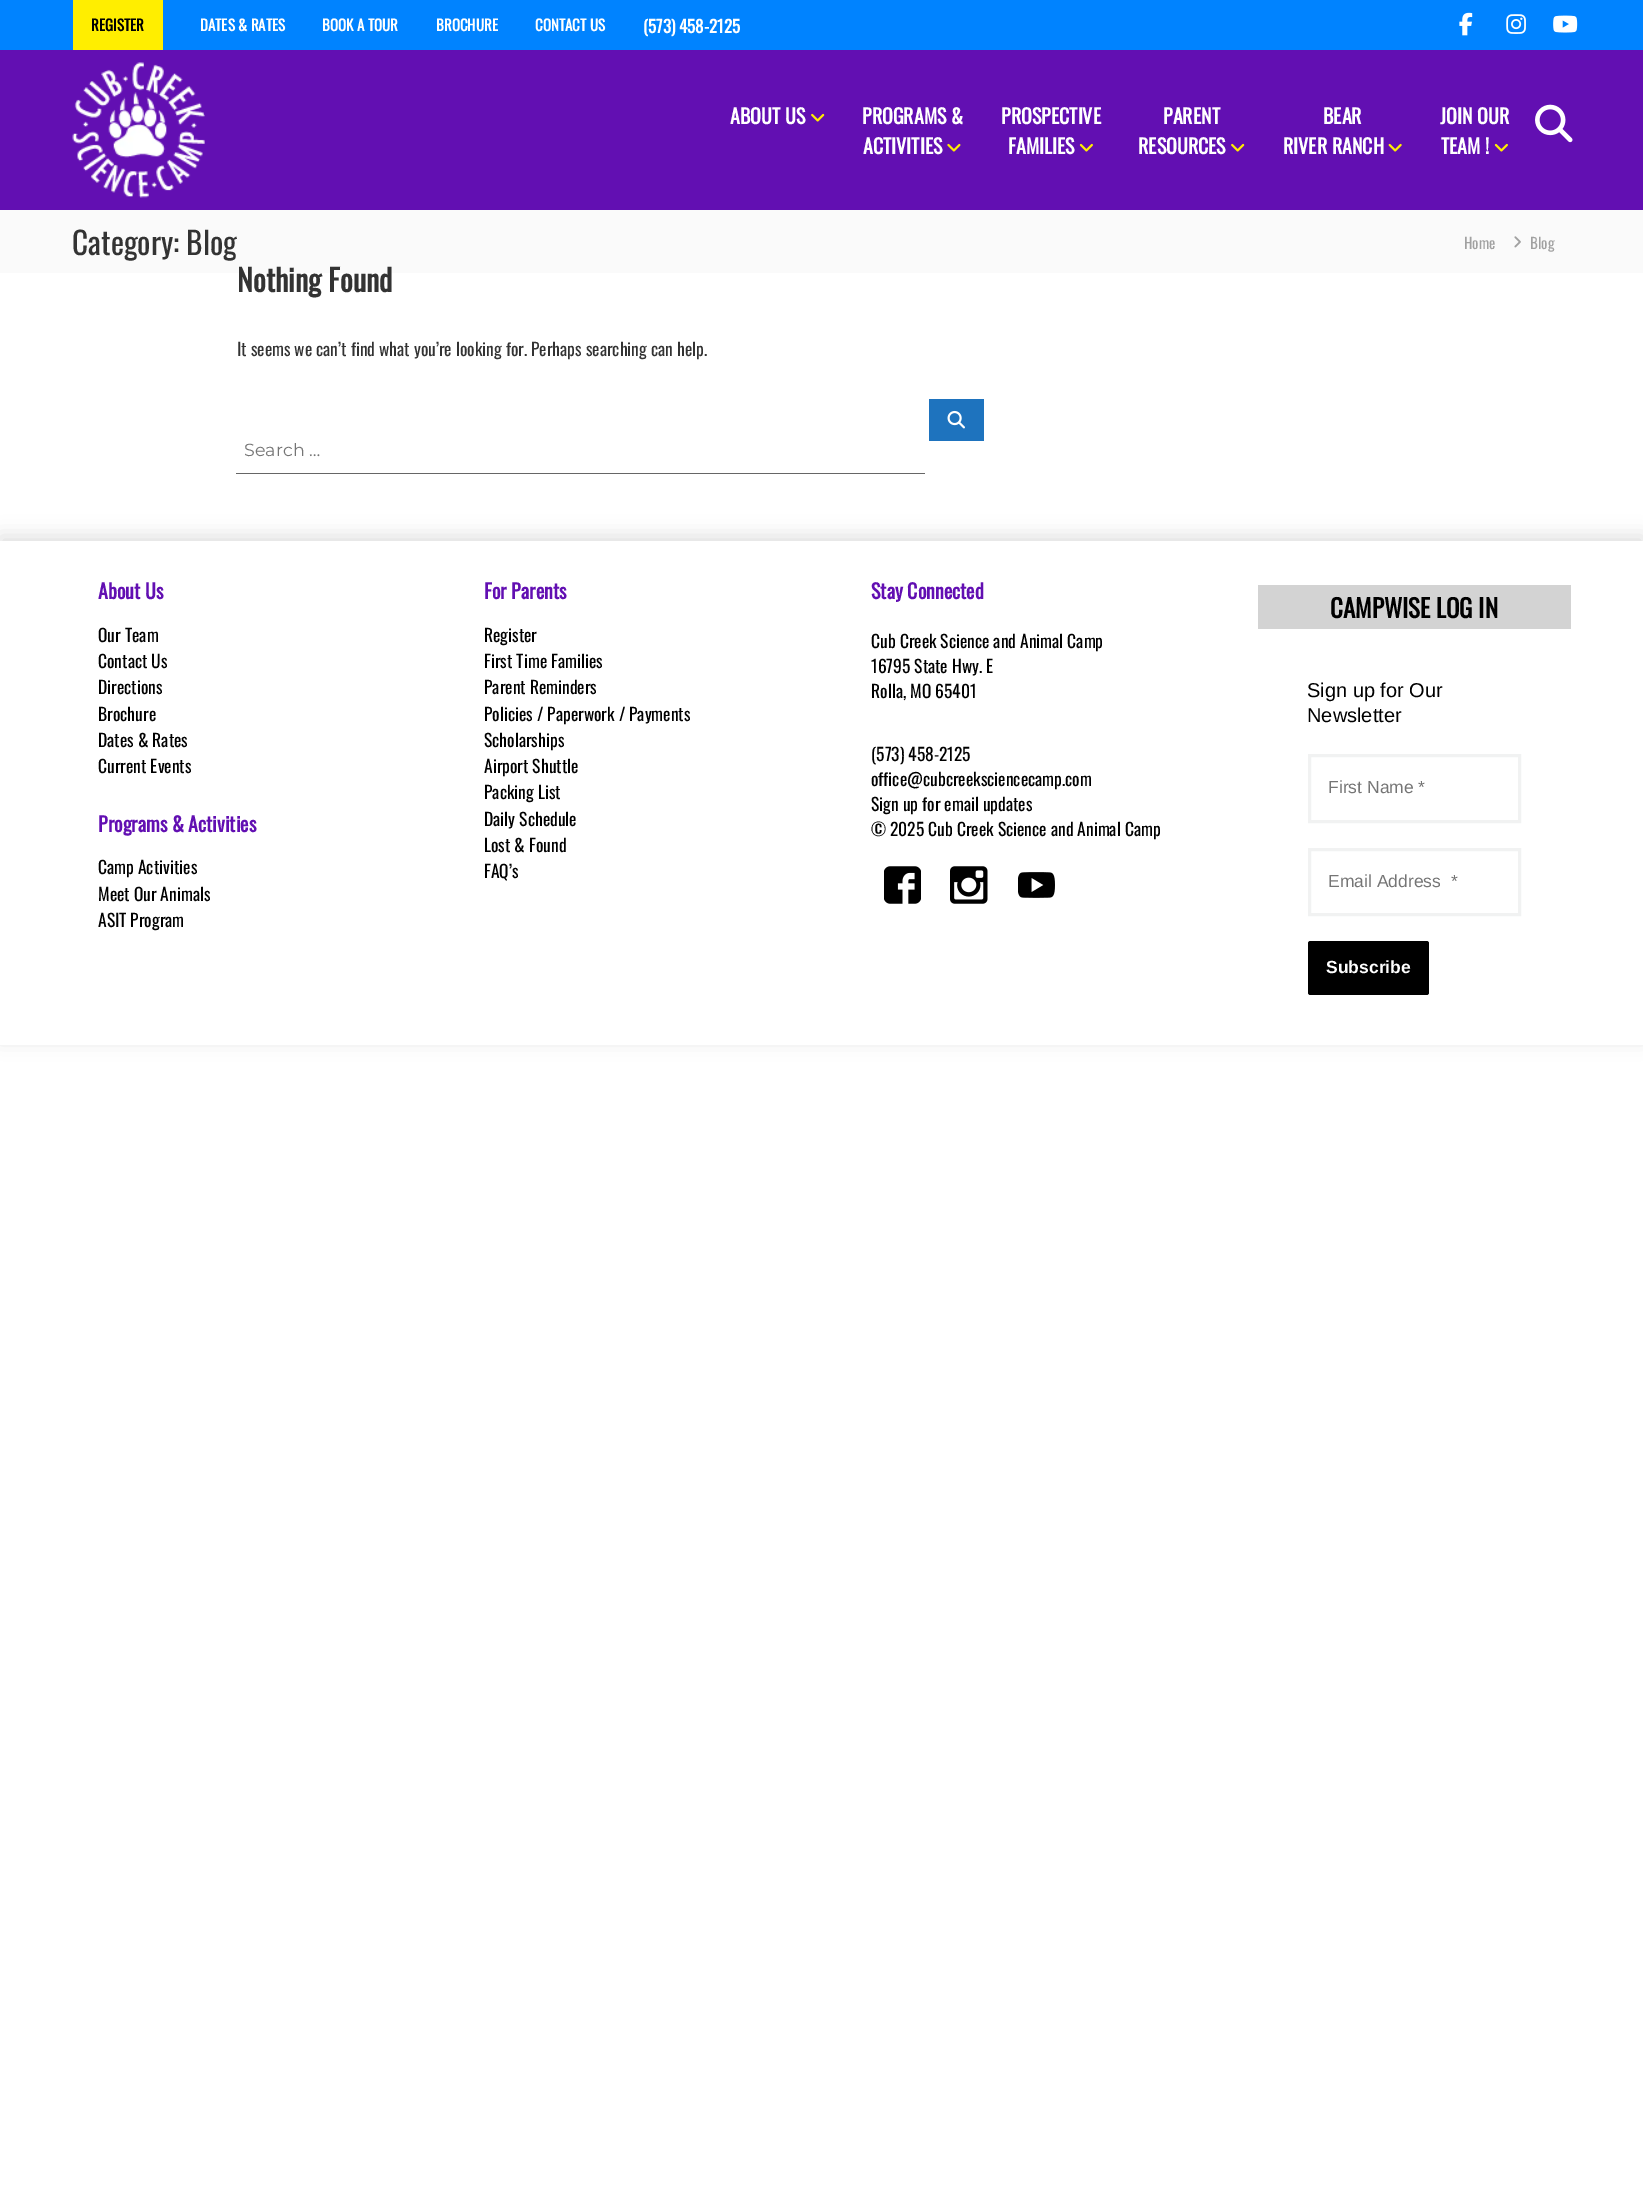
%!PS
<< /PageSize [1643 2206] /PageUsesTransparency true >> setpagedevice
/fl/fill load def
/lw/setlinewidth load def
/co { dup -16 bitshift 255 div exch dup -8 bitshift 255 and 255 div exch 255 and 255 div setrgbcolor } def
/fn { [ exch dup neg 0 0 3 -1 roll 0 0 ] selectfont } def
/tx { co fn moveto show } def
/bx { co rectfill } def
/al { dup .setfillconstantalpha .setstrokeconstantalpha } def
/rr { 5 dict begin { /r /h /w /y /x } { exch def } forall
  x r add y moveto x w add y 2 copy h add r arct x w add y h add x 1 index r arct
  x y h add x y r arct x y 2 copy exch w add exch r arct closepath end } def
/sh { 12 dict begin { /a /b /q /h /w /y /x } { exch def } forall gsave /was 0 def
  9 -2 -9 { dup b mul 4 div /e exch def 1 sub .425 mul 2.718 exch exp 1 add a .99 .min exch div /now exch def
    1 1 now sub 1 was sub div sub al /was now def
    w h .min e 2 mul add 0 gt { x e sub y e sub w e 2 mul add h e 2 mul add
      q e add b .6 mul add w h .min 2 div e add .min 0 .max rr fill } if } for grestore end } def
/im { 5 dict begin { /h /w /y /x /name } { exch def } forall
  gsave x y translate w h scale
  w h 8 [w 0 0 h 0 0] name (r) file false 3 colorimage grestore end } def
0 .pushpdf14devicefilter
0 2206 translate 1 -1 scale
4 setmiterlimit
0 0 1643 2206 16#FFFFFF bx
0 0 1643 50 16#0083FF bx
73 0 90 50 16#FFEE00 bx
(media/1.raw) 1459 12 14 24 im
(media/2.raw) 1506 14 20 20 im
(media/3.raw) 1553 15 25 18 im
0 50 1643 160 16#620FB2 bx
(media/4.raw) 72 62 133 136 im
(media/5.raw) 811 113 14 9 im
(media/6.raw) 947 143 14 9 im
(media/7.raw) 1079 143 14 9 im
(media/5.raw) 1231 143 14 9 im
(media/8.raw) 1388 143 14 9 im
(media/7.raw) 1494 143 14 9 im
(media/9.raw) 1535 104 38 39 im
0 210 1643 63 16#FAFAFA bx
(media/10.raw) 1514 236 7 12 im
929 399 55 42 16#1E73BE bx
(media/11.raw) 947 410 18 19 im
236 473 689 1 16#666666 bx
16#000000 co
0 536 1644 504 0 9.5 .12 sh
0 541 1643 504 16#FFFFFF bx
(media/12.raw) 884 866 37 38 im
(media/13.raw) 950 866 38 38 im
(media/14.raw) 1018 872 37 26 im
1258 585 313 44 16#D3D3D3 bx
16#F1F2F2 co
3 lw
1309.5 755.5 210 66 rectstroke
1309.5 849.5 210 65 rectstroke
16#000000 co
1308 941 121 54 2.5 rr fl
(REGISTER) 91 31 /Oswald-Bold 15 16#000000 tx
(DATES & RATES) 200 31 /Oswald-Bold 15 16#FFFFFF tx
(BOOK A TOUR) 322 31 /Oswald-Bold 15 16#FFFFFF tx
(BROCHURE) 436 31 /Oswald-Bold 15 16#FFFFFF tx
(CONTACT US) 535 31 /Oswald-Bold 15 16#FFFFFF tx
(\(573\) 458-2125) 643 33 /Oswald-Bold 17 16#FFFFFF tx
(ABOUT US) 730 124 /Oswald-Bold 20 16#FFFFFF tx
(PROGRAMS &) 862 124 /Oswald-Bold 20 16#FFFFFF tx
(ACTIVITIES) 863 154 /Oswald-Bold 20 16#FFFFFF tx
(PROSPECTIVE) 1001 124 /Oswald-Bold 20 16#FFFFFF tx
(FAMILIES) 1008 154 /Oswald-Bold 20 16#FFFFFF tx
(PARENT) 1163 124 /Oswald-Bold 20 16#FFFFFF tx
(RESOURCES) 1138 154 /Oswald-Bold 20 16#FFFFFF tx
(BEAR) 1323 124 /Oswald-Bold 20 16#FFFFFF tx
(RIVER RANCH) 1283 154 /Oswald-Bold 20 16#FFFFFF tx
(JOIN OUR) 1440 124 /Oswald-Bold 20 16#FFFFFF tx
(TEAM !) 1441 154 /Oswald-Bold 20 16#FFFFFF tx
(Category: Blog) 72 255 /Oswald-Regular 31.25 16#333333 tx
(Home) 1464 249 /Oswald-Regular 15 16#A1A1A1 tx
(Blog) 1530 249 /Oswald-Regular 15 16#A1A1A1 tx
(Nothing Found) 237 292 /Oswald-Bold 30 16#333333 tx
(It seems we can’t find what you’re looking for. Perhaps searching can help.) 237 356 /Oswald-Regular 17.5 16#333333 tx
(Search …) 244 456 /Montserrat-Regular 17.5 16#757575 tx
(About Us) 98 599 /Oswald-Bold 20 16#620FB2 tx
(Our Team) 98 642 /Oswald-Regular 17.5 16#000000 tx
(Contact Us) 98 668 /Oswald-Regular 17.5 16#000000 tx
(Directions) 98 694 /Oswald-Regular 17.5 16#000000 tx
(Brochure) 98 721 /Oswald-Regular 17.5 16#000000 tx
(Dates & Rates) 98 747 /Oswald-Regular 17.5 16#000000 tx
(Current Events) 98 773 /Oswald-Regular 17.5 16#000000 tx
(Programs & Activities) 98 832 /Oswald-Bold 20 16#620FB2 tx
(Camp Activities) 98 874 /Oswald-Regular 17.5 16#000000 tx
(Meet Our Animals) 98 901 /Oswald-Regular 17.5 16#000000 tx
(ASIT Program) 98 927 /Oswald-Regular 17.5 16#000000 tx
(For Parents) 484 599 /Oswald-Bold 20 16#620FB2 tx
(Register) 484 642 /Oswald-Regular 17.5 16#000000 tx
(First Time Families) 484 668 /Oswald-Regular 17.5 16#000000 tx
(Parent Reminders) 484 694 /Oswald-Regular 17.5 16#000000 tx
(Policies / Paperwork / Payments) 484 721 /Oswald-Regular 17.5 16#000000 tx
(Scholarships) 484 747 /Oswald-Regular 17.5 16#000000 tx
(Airport Shuttle) 484 773 /Oswald-Regular 17.5 16#000000 tx
(Packing List) 484 799 /Oswald-Regular 17.5 16#000000 tx
(Daily Schedule) 484 826 /Oswald-Regular 17.5 16#000000 tx
(Lost & Found) 484 852 /Oswald-Regular 17.5 16#000000 tx
(FAQ’s) 484 878 /Oswald-Regular 17.5 16#000000 tx
(Stay Connected) 871 599 /Oswald-Bold 20 16#620FB2 tx
(Cub Creek Science and Animal Camp) 871 648 /Oswald-Regular 17.5 16#000000 tx
(16795 State Hwy. E) 871 673 /Oswald-Regular 17.5 16#000000 tx
(Rolla, MO 65401) 871 698 /Oswald-Regular 17.5 16#000000 tx
(\(573\) 458-2125) 871 761 /Oswald-Regular 17.5 16#000000 tx
(office@cubcreeksciencecamp.com) 871 786 /Oswald-Regular 17.5 16#000000 tx
(Sign up for email updates) 871 811 /Oswald-Regular 17.5 16#000000 tx
(© 2025 Cub Creek Science and Animal Camp) 871 836 /Oswald-Regular 17.5 16#000000 tx
(CAMPWISE LOG IN) 1330 618 /Oswald-Bold 25 16#000000 tx
(Sign up for Our) 1307 697 /LiberationSans-Regular 20 16#000000 tx
(Newsletter) 1307 722 /LiberationSans-Regular 20 16#000000 tx
(First Name *) 1328 793 /LiberationSans-Regular 17.5 16#757575 tx
(Email Address  *) 1328 887 /LiberationSans-Regular 17.5 16#757575 tx
(Subscribe) 1326 973 /LiberationSans-Bold 17.5 16#FFFFFF tx
.poppdf14devicefilter showpage
